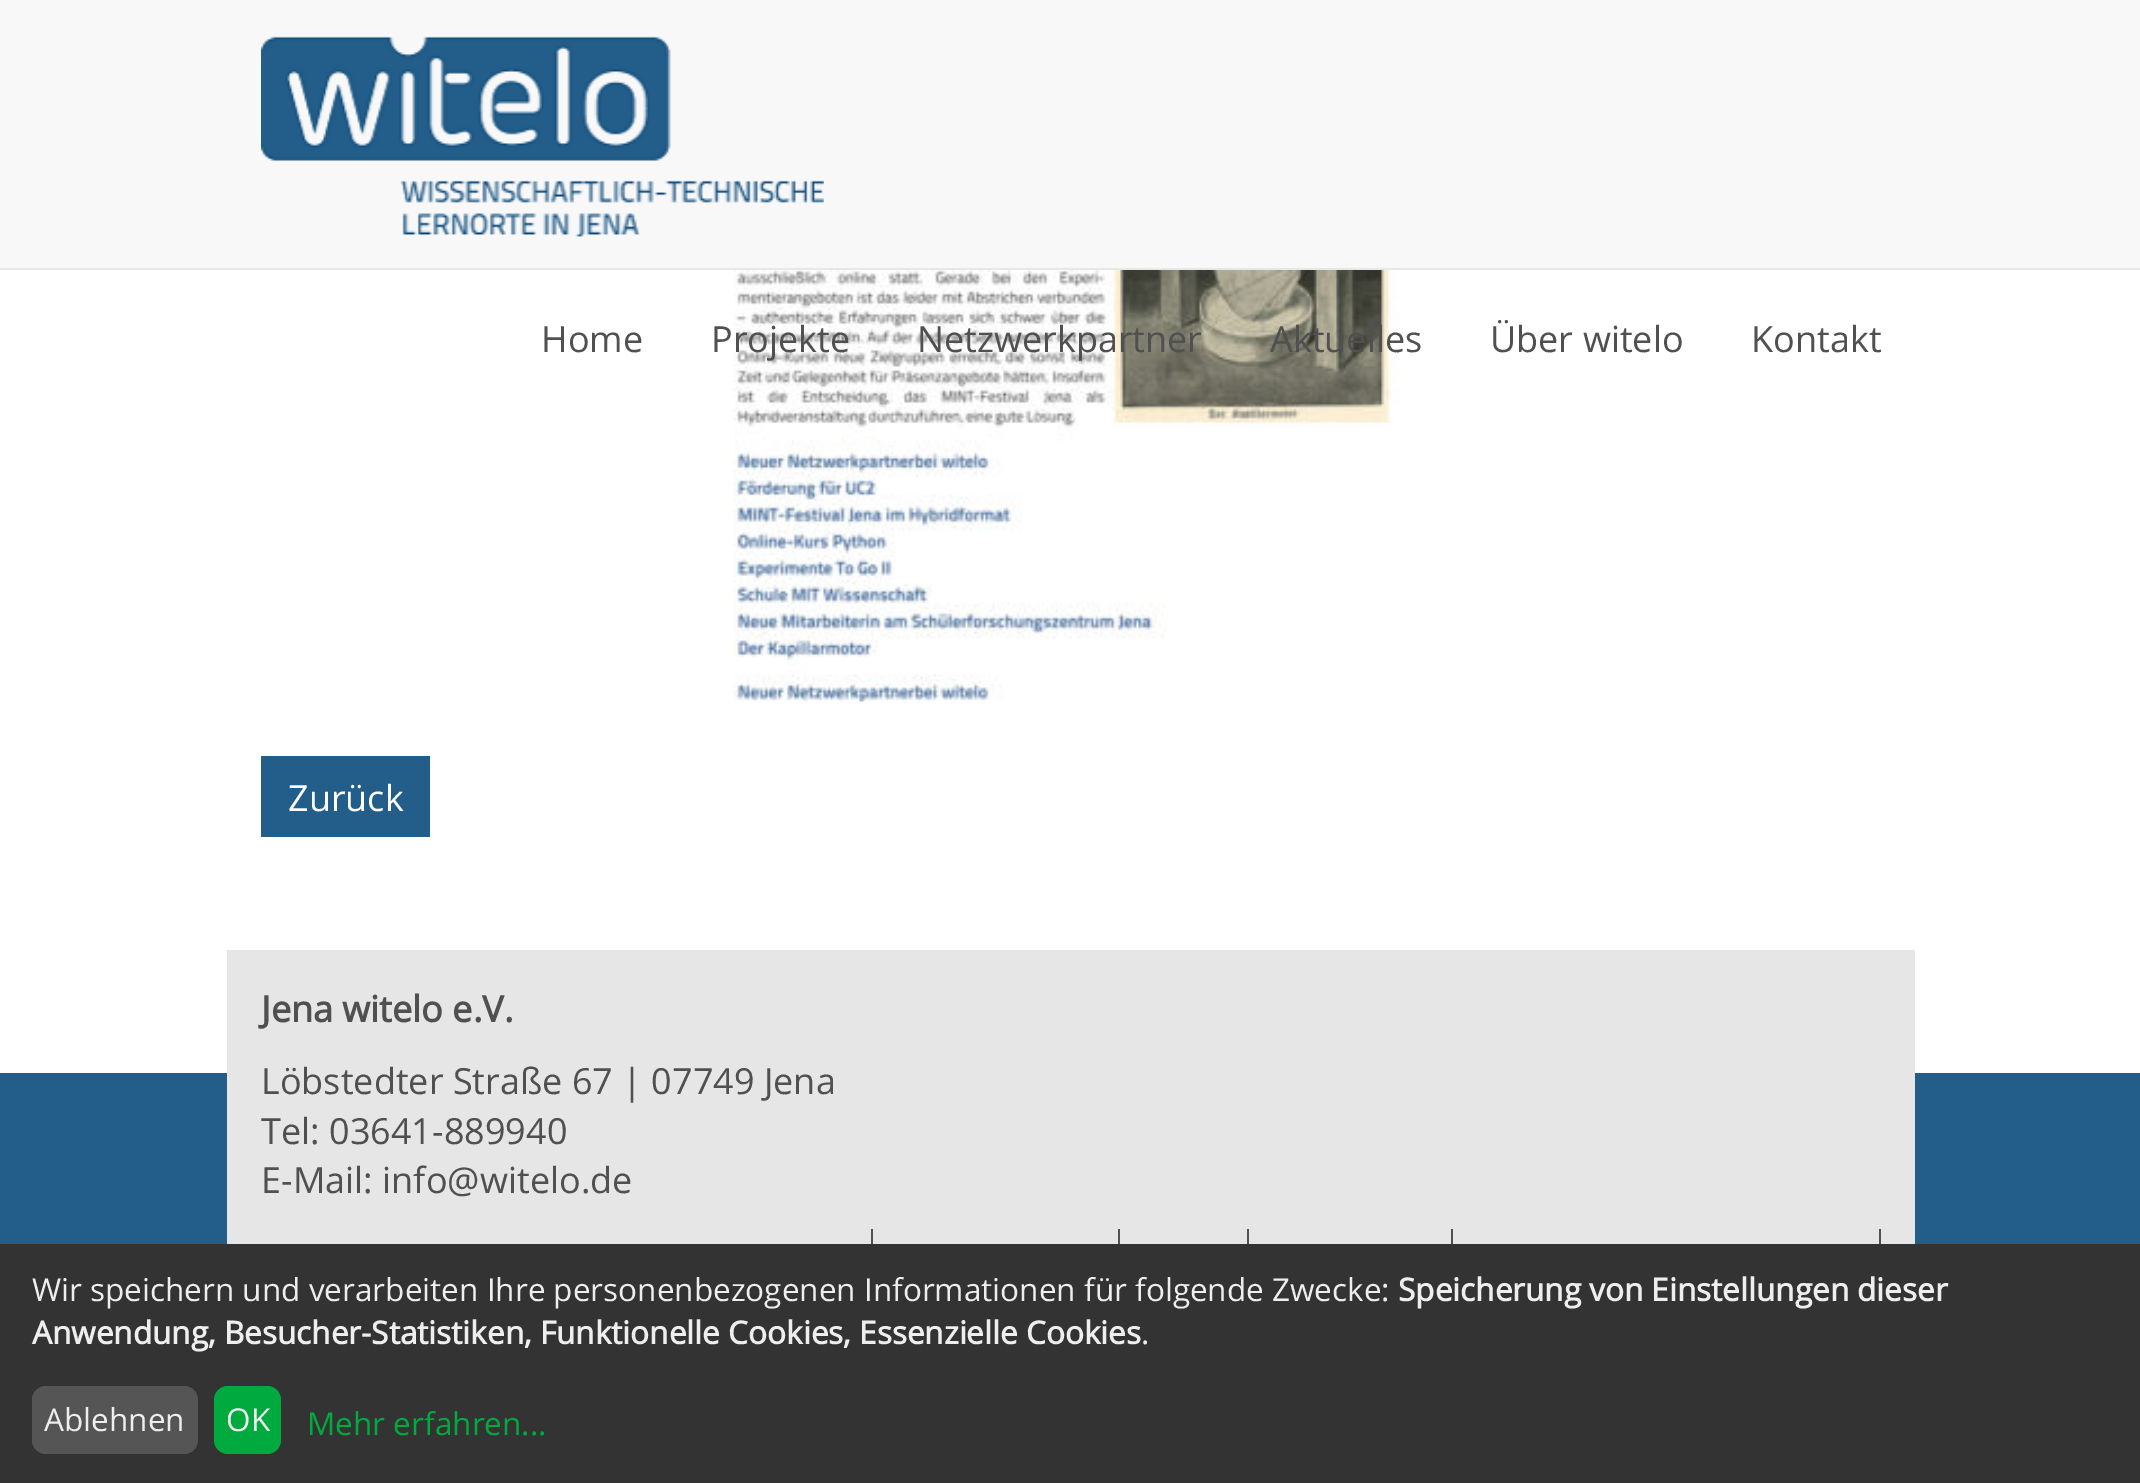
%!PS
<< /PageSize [2140 1483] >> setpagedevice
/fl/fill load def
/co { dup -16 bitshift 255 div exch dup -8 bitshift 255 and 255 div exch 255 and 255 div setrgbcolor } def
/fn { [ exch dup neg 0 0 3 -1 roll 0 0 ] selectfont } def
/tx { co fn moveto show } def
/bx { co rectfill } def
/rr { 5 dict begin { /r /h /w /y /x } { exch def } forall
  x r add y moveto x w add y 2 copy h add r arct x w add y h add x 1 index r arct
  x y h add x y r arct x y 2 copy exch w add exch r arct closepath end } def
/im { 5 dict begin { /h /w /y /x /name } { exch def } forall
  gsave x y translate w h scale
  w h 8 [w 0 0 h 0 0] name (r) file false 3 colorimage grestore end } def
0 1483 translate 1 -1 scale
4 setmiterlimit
0 0 2140 1483 16#FFFFFF bx
0 0 2140 268 16#F8F8F8 bx
0 268 2140 2 16#E7E7E7 bx
(media/1.raw) 261 36 563 201 im
(media/2.raw) 733 270 667 432 im
261 756 169 81 16#235D89 bx
0 1073 2140 171 16#235D89 bx
227 950 1688 294 16#E6E6E6 bx
871 1229 2 15 16#505050 bx
1118 1229 2 15 16#505050 bx
1247 1229 2 15 16#505050 bx
1451 1229 2 15 16#505050 bx
1879 1229 2 15 16#505050 bx
0 1244 2140 239 16#333333 bx
16#555555 co
32 1386 166 68 14 rr fl
16#00AA3E co
214 1386 67 68 14 rr fl
(Home) 541 352 /OpenSans-Regular 36 16#505050 tx
(Projekte) 711 352 /OpenSans-Regular 36 16#505050 tx
(Netzwerkpartner) 917 352 /OpenSans-Regular 36 16#505050 tx
(Aktuelles) 1270 352 /OpenSans-Regular 36 16#505050 tx
(Über witelo) 1490 352 /OpenSans-Regular 36 16#505050 tx
(Kontakt) 1751 352 /OpenSans-Regular 36 16#505050 tx
(Zurück) 288 811 /OpenSans-Regular 36 16#FFFFFF tx
(Jena witelo e.V.) 261 1022 /OpenSans-Bold 36 16#505050 tx
(Löbstedter Straße 67 | 07749 Jena) 261 1094 /OpenSans-Regular 36 16#505050 tx
(Tel: 03641-889940) 261 1144 /OpenSans-Regular 36 16#505050 tx
(E-Mail: info@witelo.de) 261 1193 /OpenSans-Regular 36 16#505050 tx
(Wir speichern und verarbeiten Ihre personenbezogenen Informationen für folgende Zwecke:) 32 1301 /OpenSans-Regular 31.5 16#EEEEEE tx
(Speicherung von Einstellungen dieser) 1398 1301 /OpenSans-Bold 31.5 16#EEEEEE tx
(Anwendung, Besucher-Statistiken, Funktionelle Cookies, Essenzielle Cookies) 32 1344 /OpenSans-Bold 31.5 16#EEEEEE tx
(.) 1141 1344 /OpenSans-Regular 31.5 16#EEEEEE tx
(Ablehnen) 44 1431 /OpenSans-Regular 31.5 16#EEEEEE tx
(OK) 226 1431 /OpenSans-Regular 31.5 16#EEEEEE tx
(Mehr erfahren...) 307 1435 /OpenSans-Regular 31.5 16#00AA3E tx
showpage
